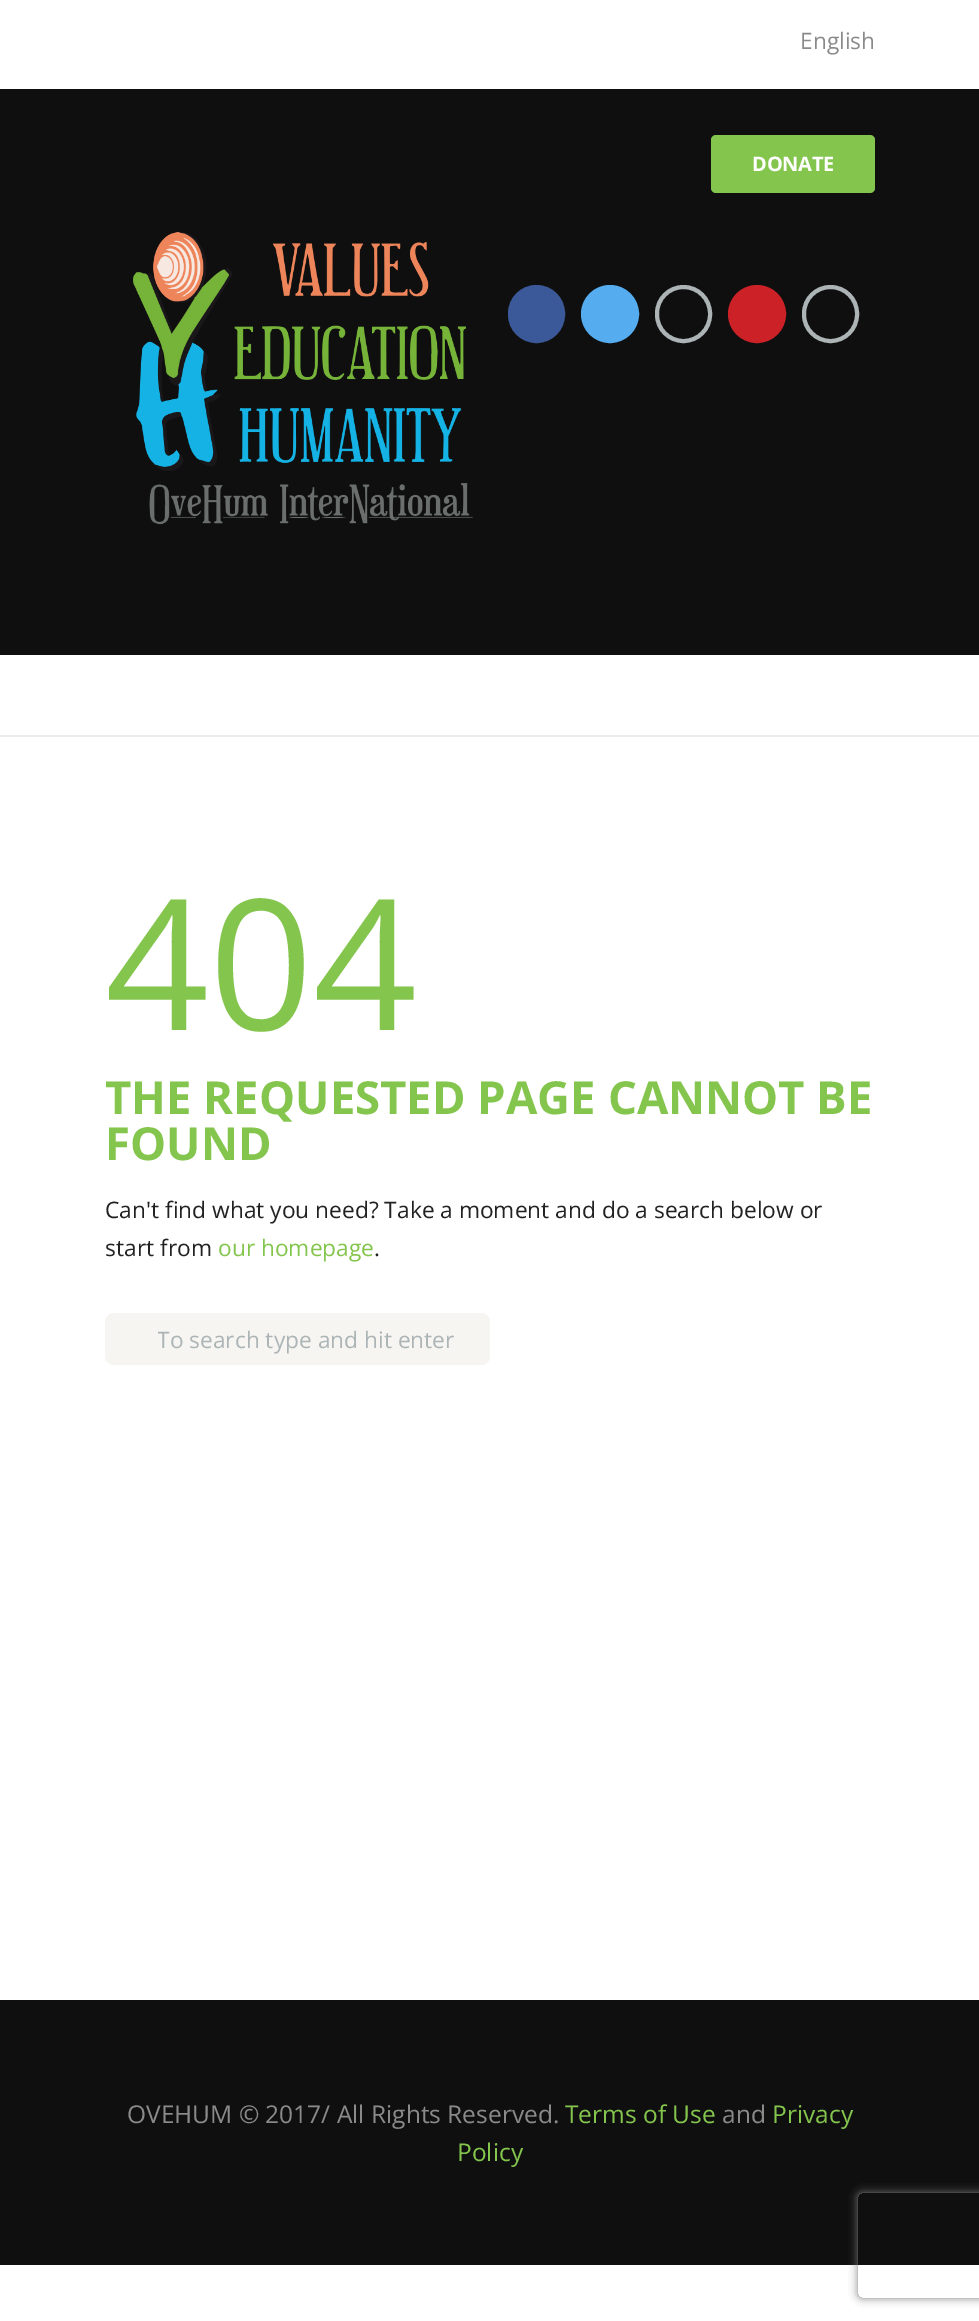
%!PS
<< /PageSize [979 2321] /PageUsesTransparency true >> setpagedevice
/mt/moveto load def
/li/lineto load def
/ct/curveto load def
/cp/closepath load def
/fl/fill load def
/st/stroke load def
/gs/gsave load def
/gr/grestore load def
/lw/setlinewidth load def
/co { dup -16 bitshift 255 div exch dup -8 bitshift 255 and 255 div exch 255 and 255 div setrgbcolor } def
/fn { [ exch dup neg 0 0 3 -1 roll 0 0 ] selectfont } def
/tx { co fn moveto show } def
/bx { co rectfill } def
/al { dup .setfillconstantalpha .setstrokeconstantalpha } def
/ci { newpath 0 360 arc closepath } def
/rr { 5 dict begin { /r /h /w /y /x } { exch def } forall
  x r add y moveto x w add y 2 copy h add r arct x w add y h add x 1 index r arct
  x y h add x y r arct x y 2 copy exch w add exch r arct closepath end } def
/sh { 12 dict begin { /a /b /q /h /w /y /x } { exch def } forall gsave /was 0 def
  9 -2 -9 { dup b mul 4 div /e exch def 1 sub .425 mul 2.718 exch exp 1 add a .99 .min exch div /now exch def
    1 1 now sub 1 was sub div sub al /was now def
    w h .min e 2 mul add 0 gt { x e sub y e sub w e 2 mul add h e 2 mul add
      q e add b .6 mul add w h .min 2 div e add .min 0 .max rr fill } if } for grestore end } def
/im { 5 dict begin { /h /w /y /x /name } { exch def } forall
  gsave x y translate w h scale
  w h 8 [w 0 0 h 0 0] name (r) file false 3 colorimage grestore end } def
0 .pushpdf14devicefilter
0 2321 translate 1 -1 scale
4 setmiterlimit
0 0 979 2321 16#FFFFFF bx
0 89 979 566 16#0F0F0F bx
16#84C54E co
711 135 164 58 5 rr fl
(media/1.raw) 133 232 340 293 im
16#3B5998 co
510 287 53 54 26.5 rr gs fl gr
4 lw
st
16#55ACEE co
610 314 27 ci gs fl gr
st
16#ACB4B6 co
657 287 53 54 26.5 rr st
16#CC2127 co
757 314 27 ci gs fl gr
st
16#ACB4B6 co
804 287 53 54 26.5 rr st
0 735 979 2 16#ECEBE9 bx
16#F6F5F2 co
105 1313 385 52 9 rr fl
0 2000 979 265 16#0F0F0F bx
gs
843 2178 mt 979 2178 li 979 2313 li 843 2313 li cp 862 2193 mt 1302 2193 li 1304 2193 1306 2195 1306 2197 ct 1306 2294 li 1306 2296 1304 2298 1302 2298 ct 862 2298 li 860 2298 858 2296 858 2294 ct 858 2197 li 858 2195 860 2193 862 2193 ct cp eoclip newpath
16#808080 co
858 2193 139 105 4 4.5 1 sh
gr
(English) 800 49 /OpenSans-Regular 22.75 16#8A8A8A tx
/OpenSans-Bold 20 fn
16#FFFFFF co
752 171 mt -.25 0 (DONATE) ashow
(404) 105 1030 /OpenSans-Regular 182 16#84C54E tx
(THE REQUESTED PAGE CANNOT BE) 105 1114 /OpenSans-Bold 45.5 16#84C54E tx
(FOUND) 105 1160 /OpenSans-Bold 45.5 16#84C54E tx
(Can't find what you need? Take a moment and do a search below or) 105 1218 /OpenSans-Regular 22.75 16#222222 tx
(start from) 105 1256 /OpenSans-Regular 22.75 16#222222 tx
(our homepage) 218 1256 /OpenSans-Regular 22.75 16#84C54E tx
(.) 374 1256 /OpenSans-Regular 22.75 16#222222 tx
gs
158 1323 322 32 rectclip
(To search type and hit enter) 157 1348 /OpenSans-Regular 22.75 16#ACB4B6 tx
gr
(OVEHUM © 2017/ All Rights Reserved.) 127 2123 /OpenSans-Regular 24.5 16#8A8A8A tx
(Terms of Use) 565 2123 /OpenSans-Regular 24.5 16#84C54E tx
(and) 722 2123 /OpenSans-Regular 24.5 16#8A8A8A tx
(Privacy) 772 2123 /OpenSans-Regular 24.5 16#84C54E tx
(Policy) 457 2161 /OpenSans-Regular 24.5 16#84C54E tx
.poppdf14devicefilter showpage
